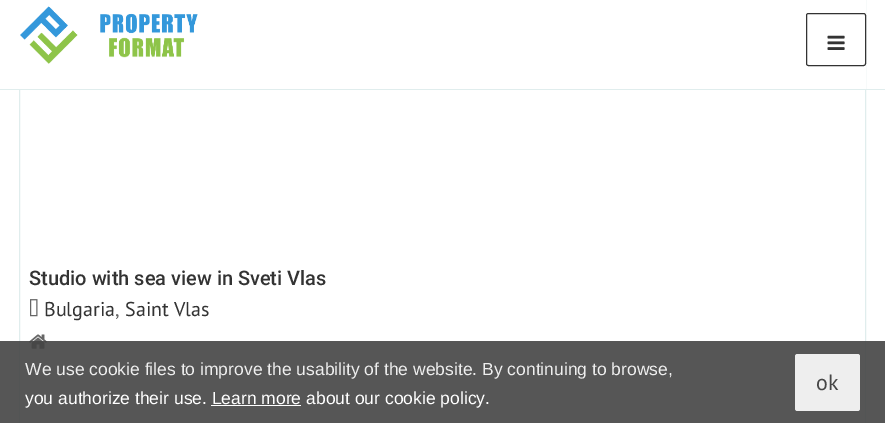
%!PS
<< /PageSize [885 423] /PageUsesTransparency true >> setpagedevice
/fl/fill load def
/st/stroke load def
/co { dup -16 bitshift 255 div exch dup -8 bitshift 255 and 255 div exch 255 and 255 div setrgbcolor } def
/fn { [ exch dup neg 0 0 3 -1 roll 0 0 ] selectfont } def
/tx { co fn moveto show } def
/bx { co rectfill } def
/al { dup .setfillconstantalpha .setstrokeconstantalpha } def
/rr { 5 dict begin { /r /h /w /y /x } { exch def } forall
  x r add y moveto x w add y 2 copy h add r arct x w add y h add x 1 index r arct
  x y h add x y r arct x y 2 copy exch w add exch r arct closepath end } def
/im { 5 dict begin { /h /w /y /x /name } { exch def } forall
  gsave x y translate w h scale
  w h 8 [w 0 0 h 0 0] name (r) file false 3 colorimage grestore end } def
0 .pushpdf14devicefilter
0 423 translate 1 -1 scale
4 setmiterlimit
0 0 885 423 16#FFFFFF bx
16#E0EDED co
19.5 -.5 846 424 rectstroke
19 0 847 89 16#FFFFFF bx
0 89 885 1 16#E0EDED bx
(media/1.raw) 20 6 178 58 im
16#333333 co
806.5 13.5 59 52 2 rr st
(media/2.raw) 827 35 18 15 im
(media/3.raw) 30 299 8 18 im
(media/4.raw) 29 334 18 15 im
0.9 al
0 341 885 82 16#444444 bx
1 al
211 405 90 1 16#FFFFFF bx
0.9 al
795 354 65 57 2.5 rr fl
1 al
(Studio with sea view in Sveti Vlas) 29 285 /Roboto-Medium 20 16#333333 tx
(Bulgaria) 44 316 /PTSans-Regular 20 16#333333 tx
(,) 115 316 /PTSans-Regular 20 16#666666 tx
(Saint Vlas) 125 316 /PTSans-Regular 20 16#333333 tx
(We use cookie files to improve the usability of the website. By continuing to browse,) 25 375 /LiberationSans-Regular 17.5 16#EEEEEE tx
(you authorize their use. Learn more about our cookie policy.) 25 404 /LiberationSans-Regular 17.5 16#FFFFFF tx
(ok) 816 390 /PTSans-Regular 22 16#464646 tx
.poppdf14devicefilter showpage
